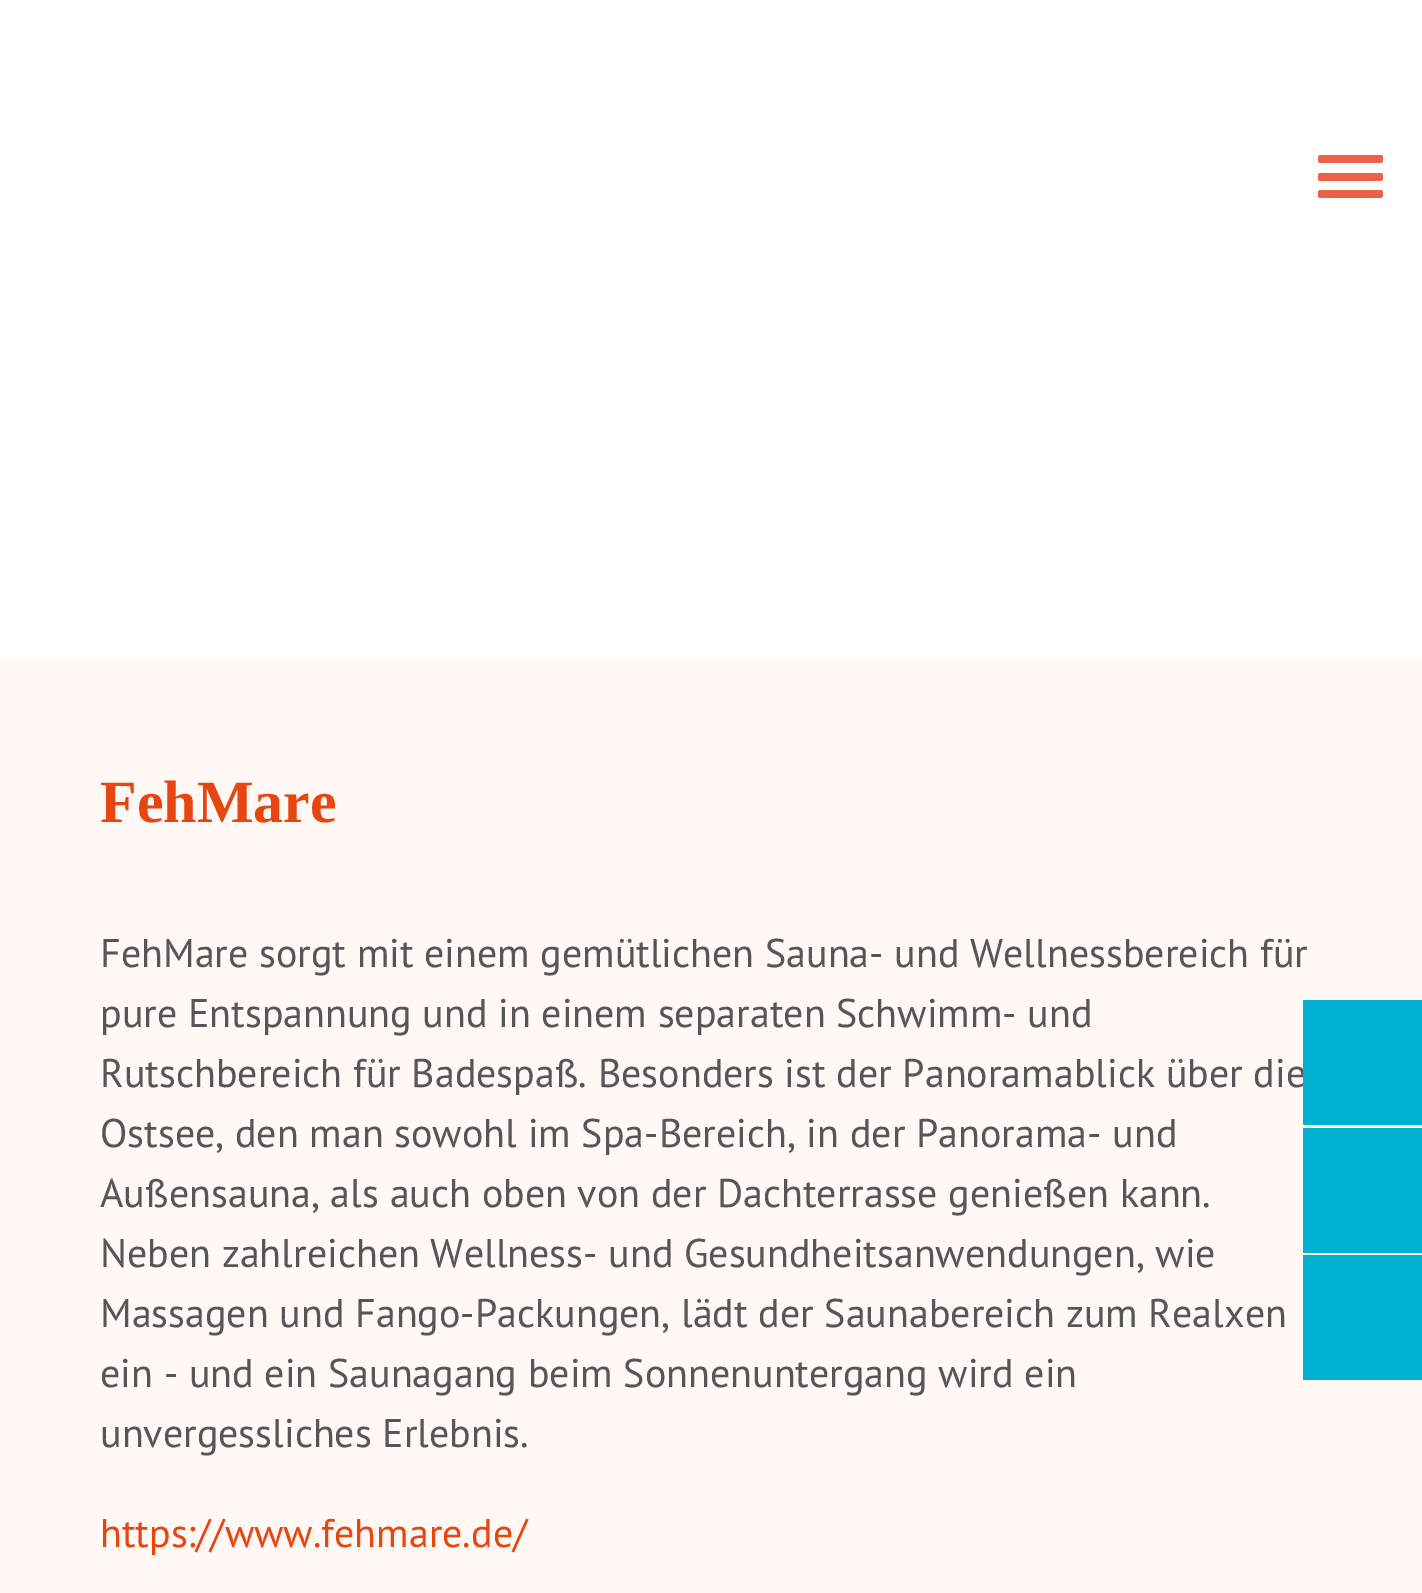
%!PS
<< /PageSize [1422 1593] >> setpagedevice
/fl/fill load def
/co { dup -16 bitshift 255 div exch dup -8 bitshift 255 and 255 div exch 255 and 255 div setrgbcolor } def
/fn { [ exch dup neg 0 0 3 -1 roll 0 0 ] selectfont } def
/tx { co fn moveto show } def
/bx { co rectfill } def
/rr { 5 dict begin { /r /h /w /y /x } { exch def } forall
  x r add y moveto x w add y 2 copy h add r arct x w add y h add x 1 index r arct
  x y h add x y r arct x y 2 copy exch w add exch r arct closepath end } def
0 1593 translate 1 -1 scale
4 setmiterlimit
0 0 1422 1593 16#FFFFFF bx
16#EB614A co
1318 155 65 8 2.5 rr fl
1318 173 65 8 2.5 rr fl
1318 190 65 8 2.5 rr fl
0 658 1422 935 16#FFF8F5 bx
1303 1128 119 125 16#00B1D2 bx
1303 1255 119 125 16#00B1D2 bx
(FehMare) 100 822 /LiberationSerif-Bold 60 16#E74610 tx
(FehMare sorgt mit einem gemütlichen Sauna- und Wellnessbereich für) 100 967 /PTSans-Regular 40 16#565656 tx
(pure Entspannung und in einem separaten Schwimm- und) 100 1027 /PTSans-Regular 40 16#565656 tx
(Rutschbereich für Badespaß. Besonders ist der Panoramablick über die) 100 1087 /PTSans-Regular 40 16#565656 tx
(Ostsee, den man sowohl im Spa-Bereich, in der Panorama- und) 100 1147 /PTSans-Regular 40 16#565656 tx
(Außensauna, als auch oben von der Dachterrasse genießen kann.) 100 1207 /PTSans-Regular 40 16#565656 tx
(Neben zahlreichen Wellness- und Gesundheitsanwendungen, wie) 100 1267 /PTSans-Regular 40 16#565656 tx
(Massagen und Fango-Packungen, lädt der Saunabereich zum Realxen) 100 1327 /PTSans-Regular 40 16#565656 tx
(ein - und ein Saunagang beim Sonnenuntergang wird ein) 100 1387 /PTSans-Regular 40 16#565656 tx
(unvergessliches Erlebnis.) 100 1447 /PTSans-Regular 40 16#565656 tx
(https://www.fehmare.de/) 100 1547 /PTSans-Regular 40 16#E74610 tx
1303 1000 119 125 16#00B1D2 bx
showpage
